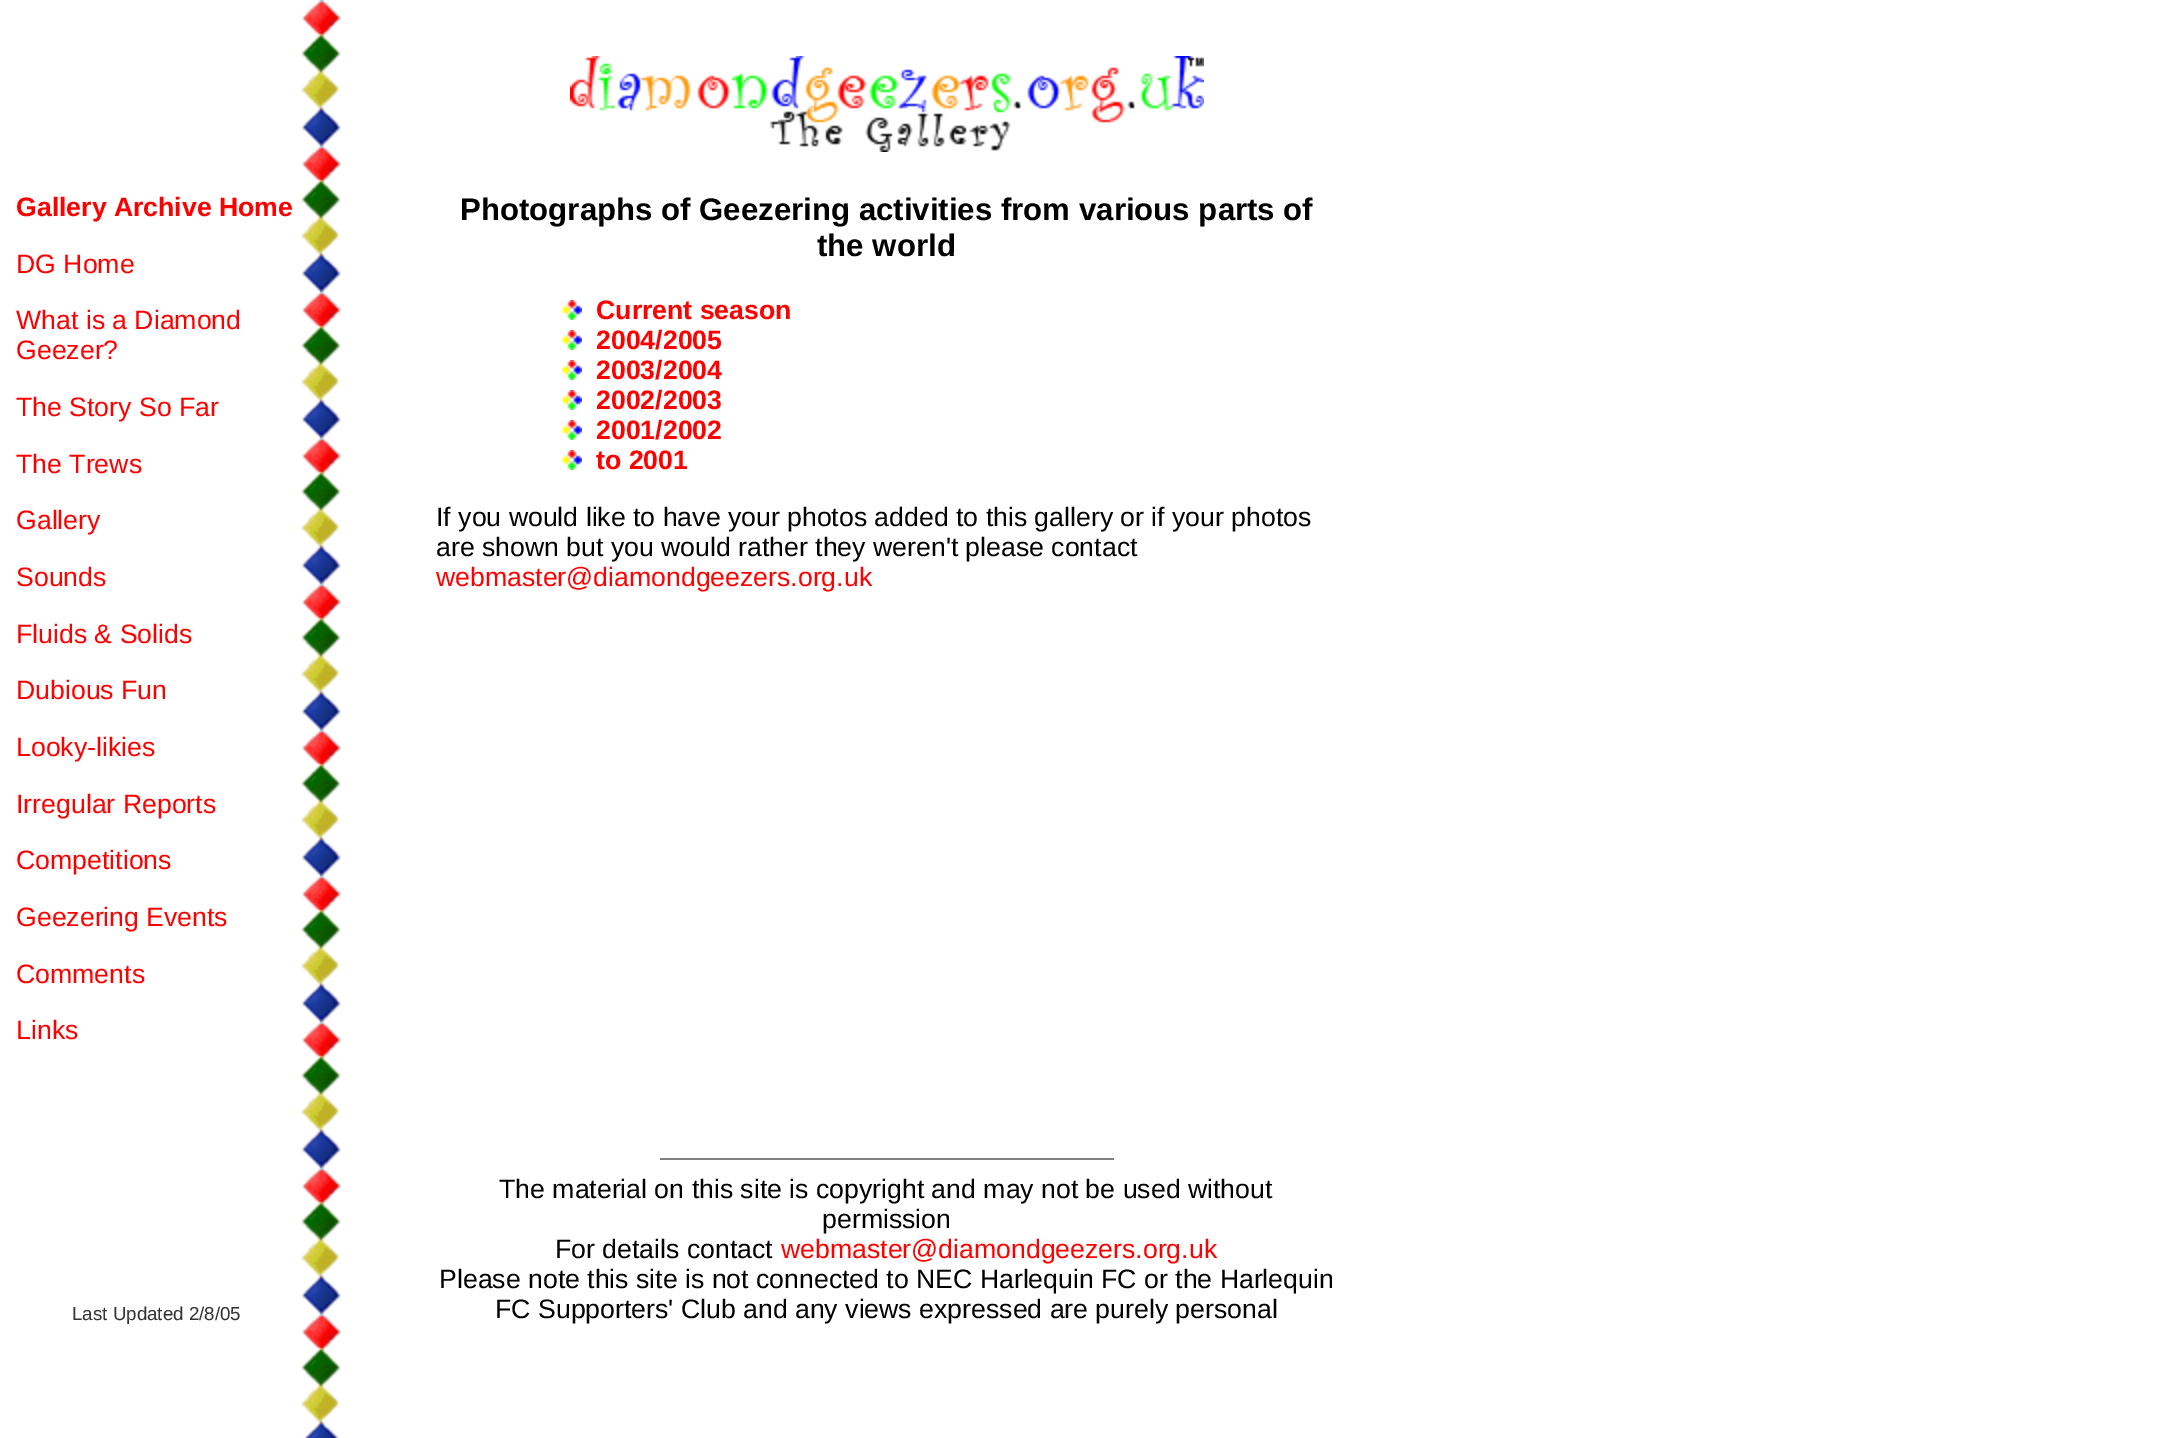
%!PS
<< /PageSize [2157 1438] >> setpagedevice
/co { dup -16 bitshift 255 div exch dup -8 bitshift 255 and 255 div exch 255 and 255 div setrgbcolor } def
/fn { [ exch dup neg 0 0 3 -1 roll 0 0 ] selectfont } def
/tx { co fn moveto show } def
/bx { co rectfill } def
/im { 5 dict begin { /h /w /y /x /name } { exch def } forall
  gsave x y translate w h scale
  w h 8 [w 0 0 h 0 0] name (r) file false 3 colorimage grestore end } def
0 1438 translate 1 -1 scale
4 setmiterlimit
0 0 2157 1438 16#FFFFFF bx
(media/1.raw) 301 0 40 1438 im
(media/2.raw) 570 56 634 96 im
(media/3.raw) 562 300 20 20 im
(media/3.raw) 562 330 20 20 im
(media/3.raw) 562 360 20 20 im
(media/3.raw) 562 390 20 20 im
(media/3.raw) 562 420 20 20 im
(media/3.raw) 562 450 20 20 im
660 1158 454 2 16#808080 bx
(Gallery Archive Home) 16 216 /LiberationSans-Bold 26.65 16#FF0000 tx
(DG Home) 16 273 /LiberationSans-Regular 26.65 16#FF0000 tx
(What is a Diamond) 16 329 /LiberationSans-Regular 26.65 16#FF0000 tx
(Geezer?) 16 359 /LiberationSans-Regular 26.65 16#FF0000 tx
(The Story So Far) 16 416 /LiberationSans-Regular 26.65 16#FF0000 tx
(The Trews) 16 473 /LiberationSans-Regular 26.65 16#FF0000 tx
(Gallery) 16 529 /LiberationSans-Regular 26.65 16#FF0000 tx
(Sounds) 16 586 /LiberationSans-Regular 26.65 16#FF0000 tx
(Fluids & Solids) 16 643 /LiberationSans-Regular 26.65 16#FF0000 tx
(Dubious Fun) 16 699 /LiberationSans-Regular 26.65 16#FF0000 tx
(Looky-likies) 16 756 /LiberationSans-Regular 26.65 16#FF0000 tx
(Irregular Reports) 16 813 /LiberationSans-Regular 26.65 16#FF0000 tx
(Competitions) 16 869 /LiberationSans-Regular 26.65 16#FF0000 tx
(Geezering Events) 16 926 /LiberationSans-Regular 26.65 16#FF0000 tx
(Comments) 16 983 /LiberationSans-Regular 26.65 16#FF0000 tx
(Links) 16 1039 /LiberationSans-Regular 26.65 16#FF0000 tx
(Photographs of Geezering activities from various parts of) 460 220 /LiberationSans-Bold 31.2 16#000000 tx
(the world) 817 256 /LiberationSans-Bold 31.2 16#000000 tx
(Current season) 596 319 /LiberationSans-Bold 26.65 16#FF0000 tx
(2004/2005) 596 349 /LiberationSans-Bold 26.65 16#FF0000 tx
(2003/2004) 596 379 /LiberationSans-Bold 26.65 16#FF0000 tx
(2002/2003) 596 409 /LiberationSans-Bold 26.65 16#FF0000 tx
(2001/2002) 596 439 /LiberationSans-Bold 26.65 16#FF0000 tx
(to 2001) 596 469 /LiberationSans-Bold 26.65 16#FF0000 tx
(If you would like to have your photos added to this gallery or if your photos) 436 526 /LiberationSans-Regular 26.65 16#000000 tx
(are shown but you would rather they weren't please contact) 436 556 /LiberationSans-Regular 26.65 16#000000 tx
(webmaster@diamondgeezers.org.uk) 436 586 /LiberationSans-Regular 26.65 16#FF0000 tx
(Last Updated 2/8/05) 72 1320 /LiberationSans-Regular 18.75 16#333333 tx
(The material on this site is copyright and may not be used without) 499 1198 /LiberationSans-Regular 26.65 16#000000 tx
(permission) 822 1228 /LiberationSans-Regular 26.65 16#000000 tx
(For details contact) 555 1258 /LiberationSans-Regular 26.65 16#000000 tx
(webmaster@diamondgeezers.org.uk) 781 1258 /LiberationSans-Regular 26.65 16#FF0000 tx
(Please note this site is not connected to NEC Harlequin FC or the Harlequin) 439 1288 /LiberationSans-Regular 26.65 16#000000 tx
(FC Supporters' Club and any views expressed are purely personal) 495 1318 /LiberationSans-Regular 26.65 16#000000 tx
showpage
